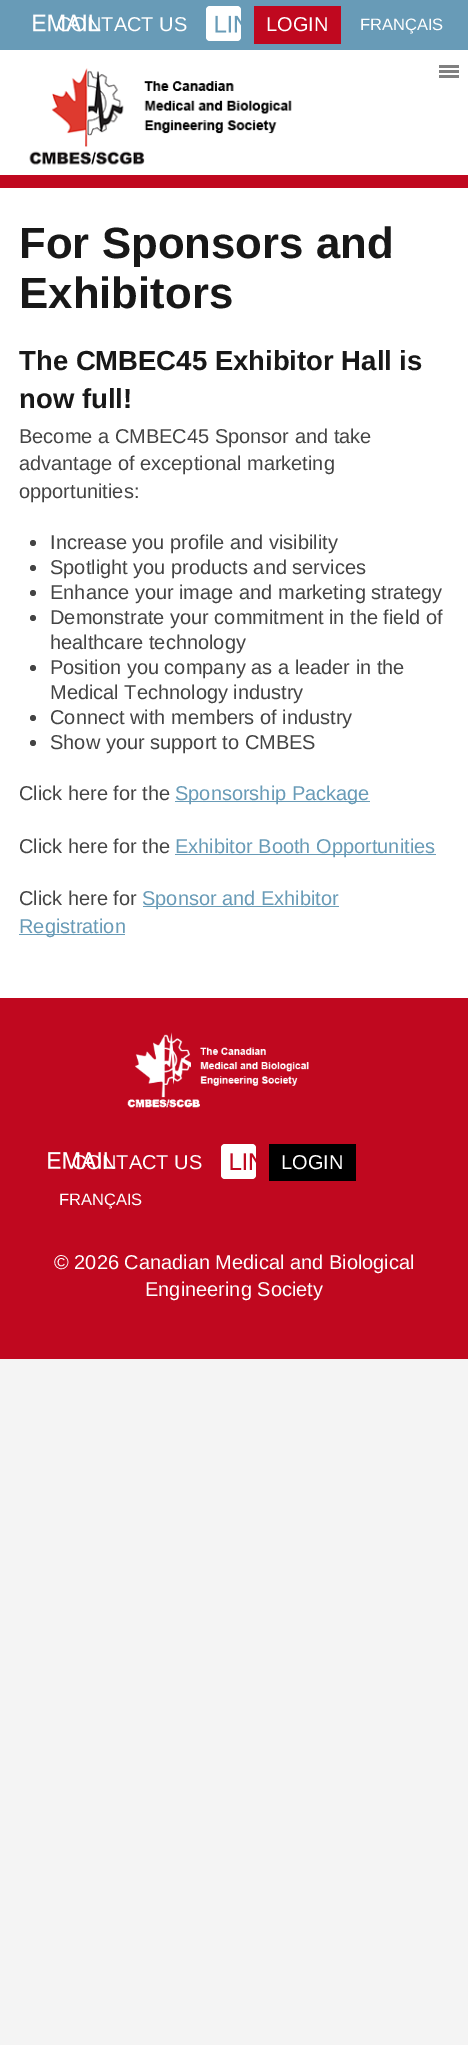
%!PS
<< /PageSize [468 2045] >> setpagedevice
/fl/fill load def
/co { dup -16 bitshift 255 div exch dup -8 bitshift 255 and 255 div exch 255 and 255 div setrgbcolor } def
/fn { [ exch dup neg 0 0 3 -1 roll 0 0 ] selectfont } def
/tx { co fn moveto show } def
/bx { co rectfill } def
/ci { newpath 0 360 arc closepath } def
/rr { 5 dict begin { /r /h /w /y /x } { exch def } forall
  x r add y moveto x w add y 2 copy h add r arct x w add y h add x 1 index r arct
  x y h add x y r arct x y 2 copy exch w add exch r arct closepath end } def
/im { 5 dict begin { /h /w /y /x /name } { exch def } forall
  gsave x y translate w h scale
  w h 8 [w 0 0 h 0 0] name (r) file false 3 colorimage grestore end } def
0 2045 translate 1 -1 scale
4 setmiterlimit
0 0 468 2045 16#F4F4F4 bx
0 0 468 50 16#689BB7 bx
(media/1.raw) 33 14 68 18 im
16#FFFFFF co
206 6 35 35 4 rr fl
(media/2.raw) 215 15 26 18 im
254 6 87 38 16#C0081F bx
0 50 468 125 16#FFFFFF bx
0 175 468 13 16#C0081F bx
(media/3.raw) 29 68 263 97 im
439 65 20 3 16#808080 bx
439 70 20 3 16#808080 bx
439 75 20 3 16#808080 bx
0 188 468 810 16#FFFFFF bx
16#444444 co
33 543 3 ci fl
33 568 3 ci fl
33 593 3 ci fl
33 618 3 ci fl
33 668 3 ci fl
33 718 3 ci fl
33 743 3 ci fl
175 801 195 1 16#689BB7 bx
175 854 261 1 16#689BB7 bx
143 906 196 1 16#689BB7 bx
19 934 106 1 16#689BB7 bx
0 998 468 361 16#C0081F bx
(media/4.raw) 127 1032 182 76 im
(media/5.raw) 48 1152 68 17 im
16#FFFFFF co
221 1144 35 35 4 rr fl
(media/6.raw) 230 1153 26 17 im
269 1144 87 37 16#000000 bx
(CONTACT US) 57 31 /LiberationSans-Regular 20 16#FFFFFF tx
(LOGIN) 266 31 /LiberationSans-Regular 20 16#FFFFFF tx
(FRANÇAIS) 360 30 /LiberationSans-Regular 16.5 16#FFFFFF tx
(For Sponsors and) 19 258 /LiberationSans-Bold 43.75 16#181818 tx
(Exhibitors) 19 308 /LiberationSans-Bold 43.75 16#181818 tx
(The CMBEC45 Exhibitor Hall is) 19 370 /LiberationSans-Bold 27.5 16#181818 tx
(now full!) 19 408 /LiberationSans-Bold 27.5 16#181818 tx
(Become a CMBEC45 Sponsor and take) 19 443 /LiberationSans-Regular 20 16#444444 tx
(advantage of exceptional marketing) 19 470 /LiberationSans-Regular 20 16#444444 tx
(opportunities:) 19 498 /LiberationSans-Regular 20 16#444444 tx
(Increase you profile and visibility) 50 549 /LiberationSans-Regular 20 16#444444 tx
(Spotlight you products and services) 50 574 /LiberationSans-Regular 20 16#444444 tx
(Enhance your image and marketing strategy) 50 599 /LiberationSans-Regular 20 16#444444 tx
(Demonstrate your commitment in the field of) 50 624 /LiberationSans-Regular 20 16#444444 tx
(healthcare technology) 50 649 /LiberationSans-Regular 20 16#444444 tx
(Position you company as a leader in the) 50 674 /LiberationSans-Regular 20 16#444444 tx
(Medical Technology industry) 50 699 /LiberationSans-Regular 20 16#444444 tx
(Connect with members of industry) 50 724 /LiberationSans-Regular 20 16#444444 tx
(Show your support to CMBES) 50 749 /LiberationSans-Regular 20 16#444444 tx
(Click here for the) 19 800 /LiberationSans-Regular 20 16#444444 tx
(Sponsorship Package) 175 800 /LiberationSans-Regular 20 16#689BB7 tx
(Click here for the) 19 853 /LiberationSans-Regular 20 16#444444 tx
(Exhibitor Booth Opportunities) 175 853 /LiberationSans-Regular 20 16#689BB7 tx
(Click here for) 19 905 /LiberationSans-Regular 20 16#444444 tx
(Sponsor and Exhibitor) 142 905 /LiberationSans-Regular 20 16#689BB7 tx
(Registration) 19 933 /LiberationSans-Regular 20 16#689BB7 tx
(CONTACT US) 72 1169 /LiberationSans-Regular 20 16#FFFFFF tx
(LOGIN) 281 1169 /LiberationSans-Regular 20 16#FFFFFF tx
(FRANÇAIS) 59 1205 /LiberationSans-Regular 16.5 16#FFFFFF tx
(© 2026 Canadian Medical and Biological) 54 1269 /LiberationSans-Regular 20 16#FFFFFF tx
(Engineering Society) 145 1296 /LiberationSans-Regular 20 16#FFFFFF tx
showpage
